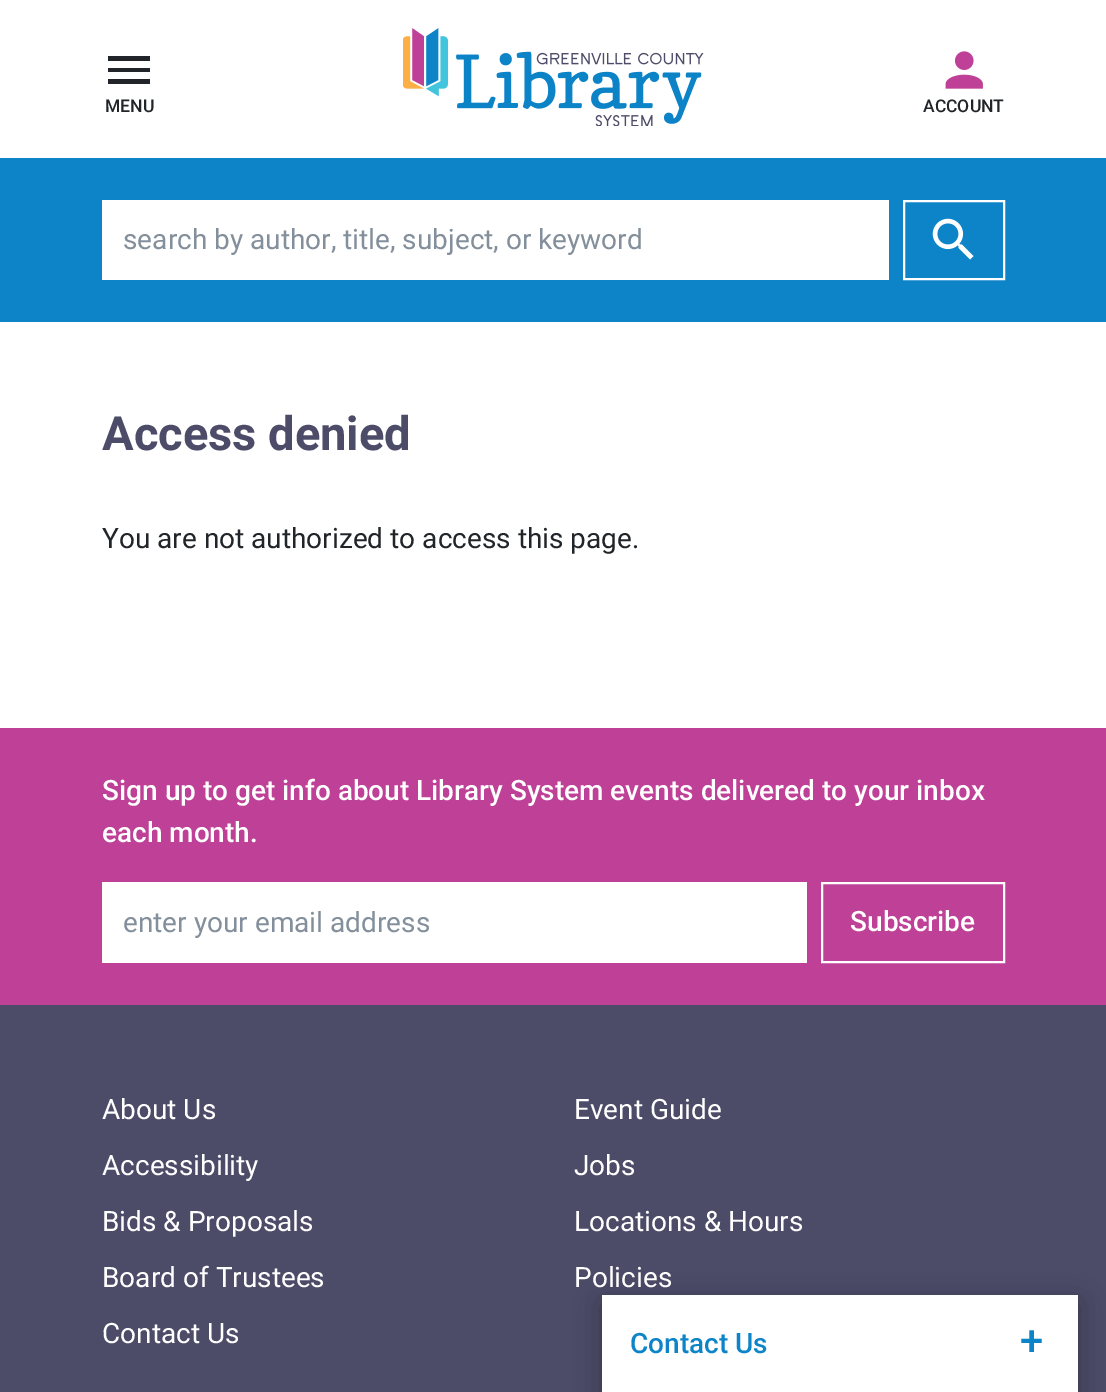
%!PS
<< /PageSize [1106 1392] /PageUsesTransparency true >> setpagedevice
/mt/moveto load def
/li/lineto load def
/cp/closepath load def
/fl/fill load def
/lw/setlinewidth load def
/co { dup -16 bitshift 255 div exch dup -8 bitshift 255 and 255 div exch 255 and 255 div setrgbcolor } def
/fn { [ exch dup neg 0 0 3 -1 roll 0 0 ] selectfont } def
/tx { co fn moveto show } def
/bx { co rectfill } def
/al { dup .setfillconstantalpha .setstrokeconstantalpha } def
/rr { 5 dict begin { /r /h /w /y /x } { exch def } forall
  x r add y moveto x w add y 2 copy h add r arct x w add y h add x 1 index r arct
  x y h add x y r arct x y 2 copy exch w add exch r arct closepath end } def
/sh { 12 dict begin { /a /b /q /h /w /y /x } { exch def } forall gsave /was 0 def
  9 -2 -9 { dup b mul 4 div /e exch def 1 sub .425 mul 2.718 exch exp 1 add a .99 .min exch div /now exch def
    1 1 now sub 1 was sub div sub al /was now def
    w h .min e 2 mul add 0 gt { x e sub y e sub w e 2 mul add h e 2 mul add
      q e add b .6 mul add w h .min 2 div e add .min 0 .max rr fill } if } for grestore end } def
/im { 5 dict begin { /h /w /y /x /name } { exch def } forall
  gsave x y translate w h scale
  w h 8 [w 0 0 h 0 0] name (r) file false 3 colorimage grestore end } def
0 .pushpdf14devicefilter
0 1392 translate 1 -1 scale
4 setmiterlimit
0 0 1106 1392 16#FFFFFF bx
16#212529 co
108 56 mt 150 56 li 150 61 li 108 61 li 108 56 li 108 68 mt 150 68 li 150 72 li 108 72 li 108 68 li 108 79 mt 150 79 li 150 84 li 108 84 li cp fl
(media/1.raw) 403 28 301 98 im
(media/2.raw) 945 51 38 38 im
0 158 1106 164 16#0D84C7 bx
102 200 787 80 16#FFFFFF bx
2 lw
904 201 100 78 rectstroke
(media/3.raw) 932 218 42 42 im
0 728 1106 277 16#BF4097 bx
102 882 705 81 16#FFFFFF bx
822 883 182 79 rectstroke
0 1005 1106 387 16#4D4C68 bx
16#000000 co
602 1302 476 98 0 14 .3 sh
602 1295 476 97 16#FFFFFF bx
(MENU) 105 112 /Roboto-Medium 17.5 16#212529 tx
(ACCOUNT) 923 112 /Roboto-Medium 17.5 16#212529 tx
(search by author, title, subject, or keyword) 123 249 /Roboto-Regular 28 16#838F9B tx
(Access denied) 102 450 /Roboto-Bold 47 16#4D4C68 tx
(You are not authorized to access this page.) 102 548 /Roboto-Regular 28 16#212529 tx
(Sign up to get info about Library System events delivered to your inbox) 102 800 /Roboto-Medium 28 16#FFFFFF tx
(each month.) 102 842 /Roboto-Medium 28 16#FFFFFF tx
(enter your email address) 123 932 /Roboto-Regular 28 16#838F9B tx
(Subscribe) 850 931 /Roboto-Medium 28 16#FFFFFF tx
(About Us) 102 1119 /Roboto-Regular 28 16#FFFFFF tx
(Event Guide) 574 1119 /Roboto-Regular 28 16#FFFFFF tx
(Accessibility) 102 1175 /Roboto-Regular 28 16#FFFFFF tx
(Jobs) 574 1175 /Roboto-Regular 28 16#FFFFFF tx
(Bids & Proposals) 102 1231 /Roboto-Regular 28 16#FFFFFF tx
(Locations & Hours) 574 1231 /Roboto-Regular 28 16#FFFFFF tx
(Board of Trustees) 102 1287 /Roboto-Regular 28 16#FFFFFF tx
(Policies) 574 1287 /Roboto-Regular 28 16#FFFFFF tx
(Contact Us) 102 1343 /Roboto-Regular 28 16#FFFFFF tx
(Contact Us) 630 1353 /Roboto-Medium 28 16#0D84C7 tx
(+) 1020 1355 /Roboto-Medium 42 16#0D84C7 tx
.poppdf14devicefilter showpage
